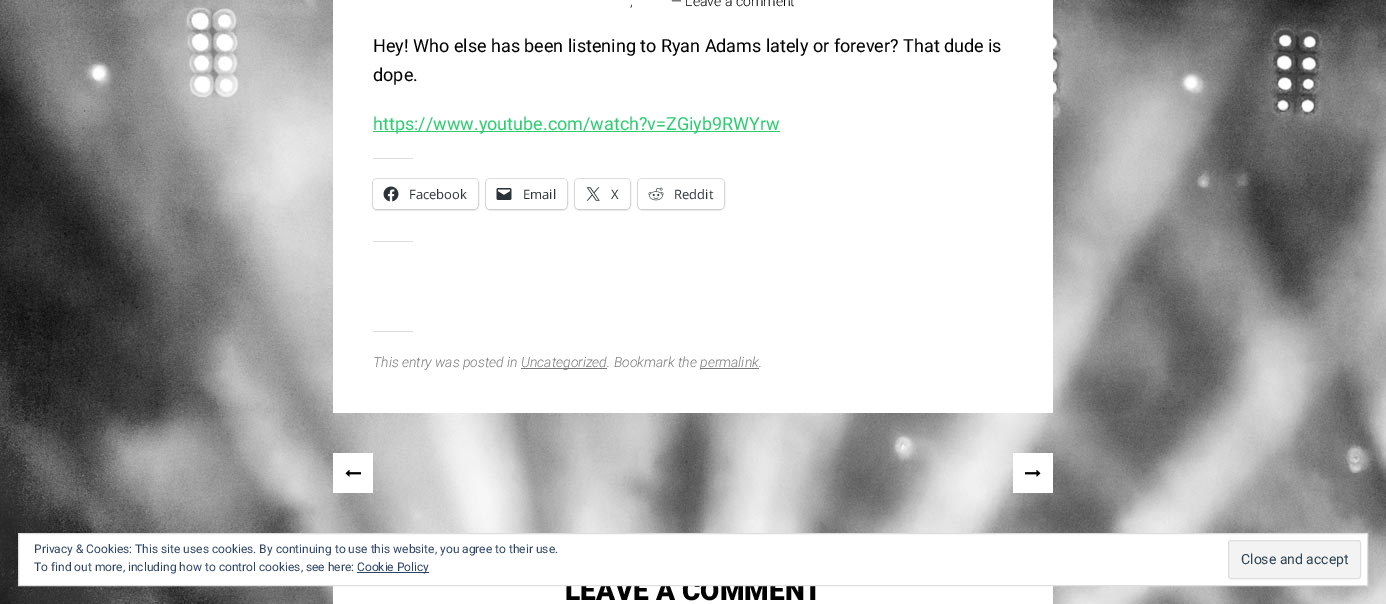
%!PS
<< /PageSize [1386 604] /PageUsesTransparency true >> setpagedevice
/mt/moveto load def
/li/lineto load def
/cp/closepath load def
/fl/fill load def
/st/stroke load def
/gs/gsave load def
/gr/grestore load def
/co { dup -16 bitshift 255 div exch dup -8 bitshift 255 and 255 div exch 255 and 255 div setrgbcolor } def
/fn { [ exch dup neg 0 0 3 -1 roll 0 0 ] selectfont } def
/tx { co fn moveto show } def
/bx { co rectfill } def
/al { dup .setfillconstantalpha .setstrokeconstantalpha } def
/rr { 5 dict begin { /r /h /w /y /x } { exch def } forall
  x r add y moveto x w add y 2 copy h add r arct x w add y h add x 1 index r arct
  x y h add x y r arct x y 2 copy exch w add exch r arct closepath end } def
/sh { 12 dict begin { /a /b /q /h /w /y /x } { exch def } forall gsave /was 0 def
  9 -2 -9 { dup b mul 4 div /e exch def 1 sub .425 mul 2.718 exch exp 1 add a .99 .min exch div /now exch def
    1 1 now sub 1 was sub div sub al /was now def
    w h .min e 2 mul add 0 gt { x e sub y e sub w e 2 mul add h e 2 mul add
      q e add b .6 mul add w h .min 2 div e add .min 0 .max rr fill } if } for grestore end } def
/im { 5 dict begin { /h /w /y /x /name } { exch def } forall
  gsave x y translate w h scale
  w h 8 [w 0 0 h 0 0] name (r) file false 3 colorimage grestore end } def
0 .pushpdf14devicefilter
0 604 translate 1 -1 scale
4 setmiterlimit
0 0 1386 604 16#FFFFFF bx
(media/1.raw) 0 0 1386 604 im
333 0 720 413 16#FFFFFF bx
373 131 407 1 16#2ECC71 bx
373 158 40 1 16#DDDDDD bx
16#E0E0E0 co
372.5 178.5 106 31 4.5 rr st
16#000000 co
373 180 105 30 4 1 .12 sh
16#FFFFFF co
373 179 105 30 4 rr fl
(media/2.raw) 383 186 16 16 im
16#E0E0E0 co
485.5 178.5 82 31 4.5 rr st
16#000000 co
486 180 81 30 4 1 .12 sh
16#FFFFFF co
486 179 81 30 4 rr fl
(media/3.raw) 496 188 16 12 im
16#E0E0E0 co
574.5 178.5 56 31 4.5 rr st
16#000000 co
575 180 55 30 4 1 .12 sh
16#FFFFFF co
575 179 55 30 4 rr fl
(media/4.raw) 586 187 14 14 im
16#E0E0E0 co
637.5 178.5 87 31 4.5 rr st
16#000000 co
638 180 86 30 4 1 .12 sh
16#FFFFFF co
638 179 86 30 4 rr fl
(media/5.raw) 648 187 16 14 im
373 241 40 1 16#DDDDDD bx
373 331 40 1 16#DDDDDD bx
521 368 86 1 16#777777 bx
700 368 59 1 16#777777 bx
333 453 40 40 16#FFFFFF bx
(media/6.raw) 345 469 16 8 im
1013 453 40 40 16#FFFFFF bx
(media/7.raw) 1025 469 16 8 im
333 586 720 18 16#FFFFFF bx
(,) 630 6 /Roboto-Light 14 16#000000 tx
(— Leave a comment) 671 6 /Roboto-Light 14 16#000000 tx
(Hey! Who else has been listening to Ryan Adams lately or forever? That dude is) 373 52 /Roboto-Regular 18 16#000000 tx
(dope.) 373 81 /Roboto-Regular 18 16#000000 tx
(https://www.youtube.com/watch?v=ZGiyb9RWYrw) 373 130 /Roboto-Regular 18 16#2ECC71 tx
(Facebook) 409 199 /OpenSans-Regular 13 16#2C3338 tx
(Email) 523 199 /OpenSans-Regular 13 16#2C3338 tx
(X) 611 199 /OpenSans-Regular 13 16#2C3338 tx
(Reddit) 674 199 /OpenSans-Regular 13 16#2C3338 tx
(This entry was posted in) 373 367 /Roboto-LightItalic 14 16#777777 tx
(Uncategorized. Bookmark the) 521 367 /Roboto-LightItalic 14 16#777777 tx
(permalink.) 700 367 /Roboto-LightItalic 14 16#777777 tx
(LEAVE A COMMENT) 565 600 /Roboto-Black 28 16#000000 tx
16#FFFFFF co
18.5 533.5 mt 1367.5 533.5 li 1367.5 585.5 li 18.5 585.5 li cp gs fl gr
16#DEDEDE co
st
(Privacy & Cookies: This site uses cookies. By continuing to use this website, you agree to their use.) 34 553 /Roboto-Regular 12 16#2E4467 tx
(To find out more, including how to control cookies, see here:) 34 571 /Roboto-Regular 12 16#2E4467 tx
357 572 72 1 16#2E4467 bx
(Cookie Policy) 357 571 /Roboto-Regular 12 16#2E4467 tx
16#F3F3F3 co
1228.5 540.5 132 38 2.5 rr gs fl gr
16#DEDEDE co
st
(Close and accept) 1241 564 /Roboto-Regular 14 16#2E4453 tx
.poppdf14devicefilter showpage
